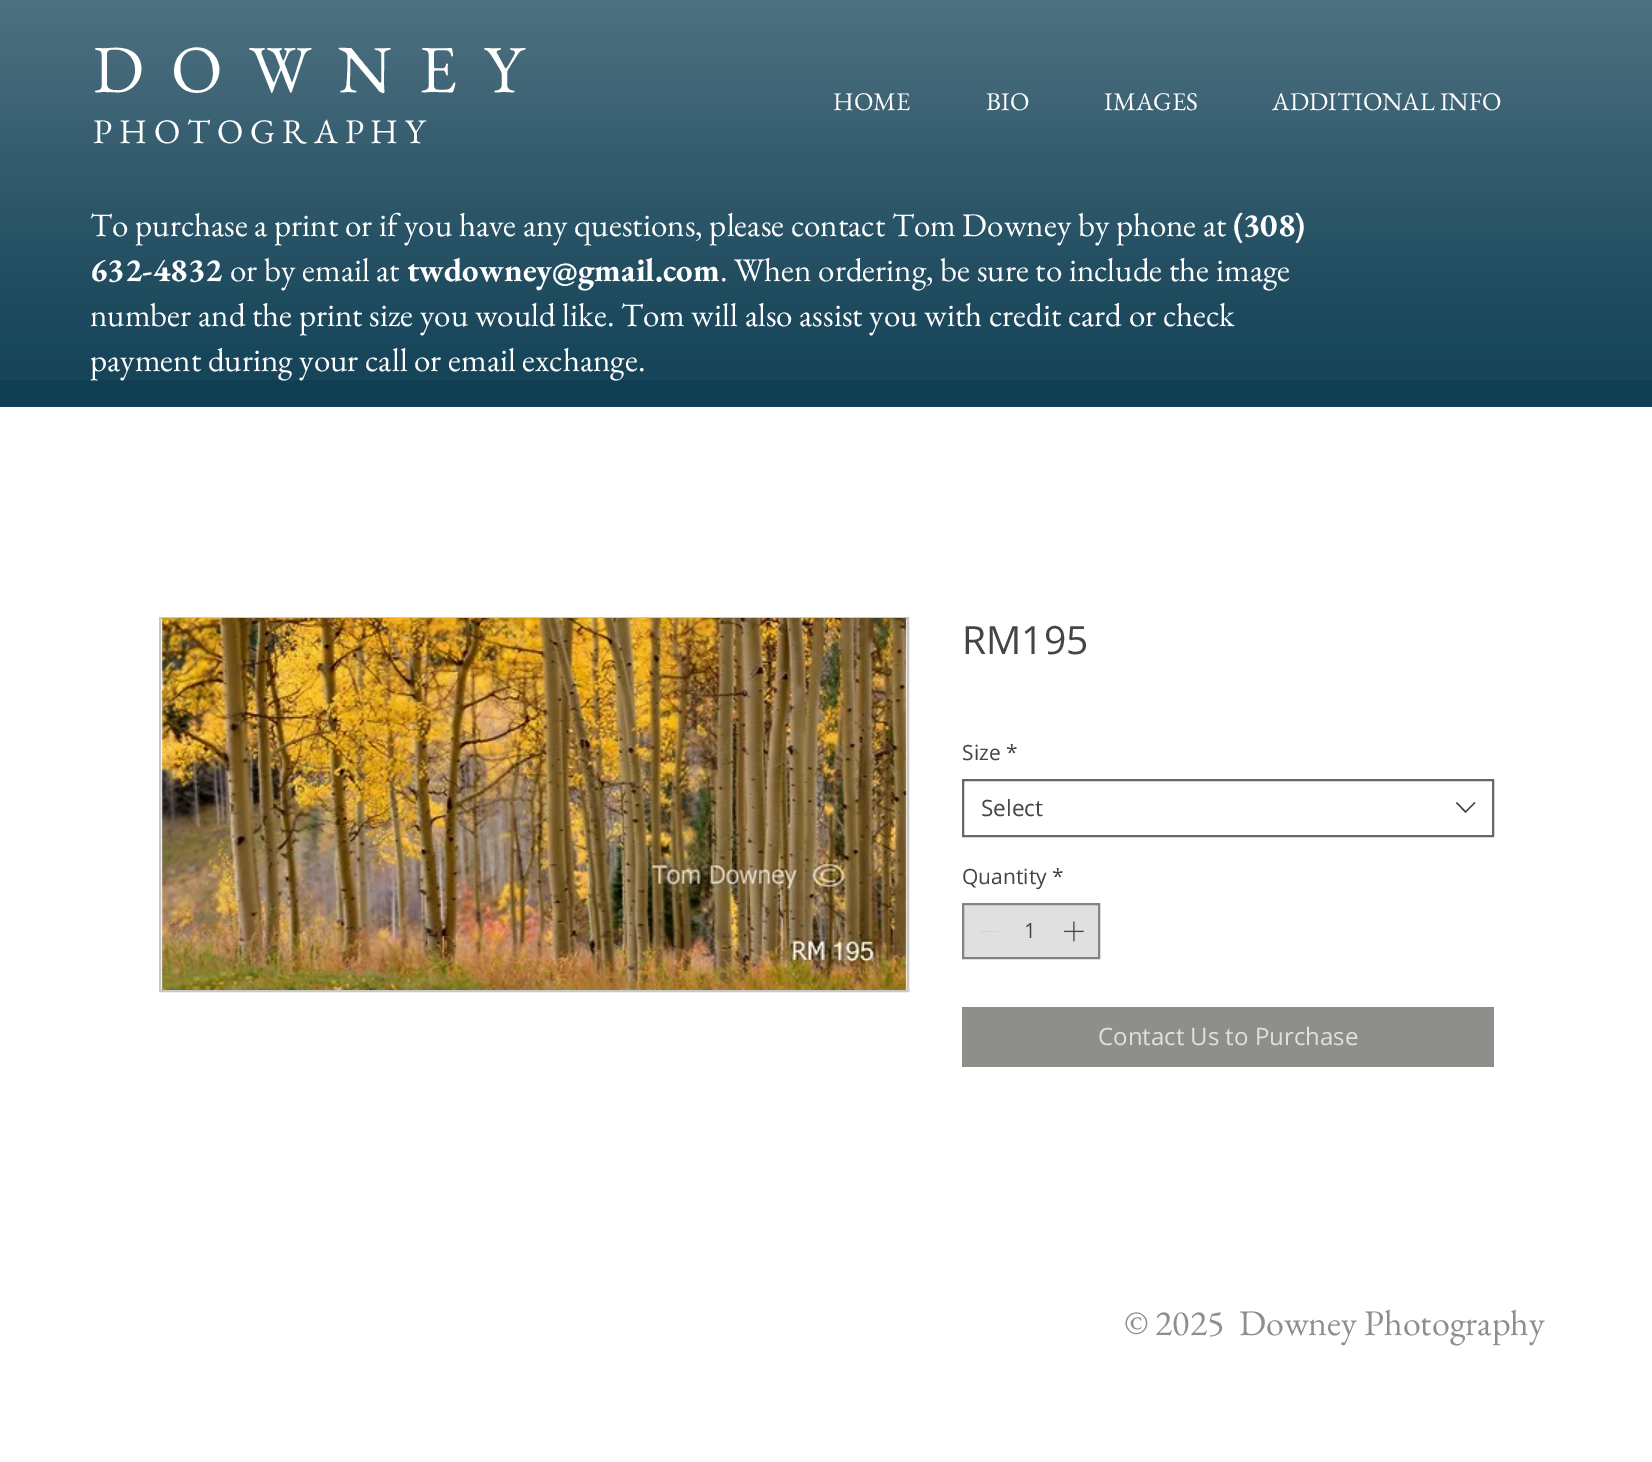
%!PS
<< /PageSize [1652 1462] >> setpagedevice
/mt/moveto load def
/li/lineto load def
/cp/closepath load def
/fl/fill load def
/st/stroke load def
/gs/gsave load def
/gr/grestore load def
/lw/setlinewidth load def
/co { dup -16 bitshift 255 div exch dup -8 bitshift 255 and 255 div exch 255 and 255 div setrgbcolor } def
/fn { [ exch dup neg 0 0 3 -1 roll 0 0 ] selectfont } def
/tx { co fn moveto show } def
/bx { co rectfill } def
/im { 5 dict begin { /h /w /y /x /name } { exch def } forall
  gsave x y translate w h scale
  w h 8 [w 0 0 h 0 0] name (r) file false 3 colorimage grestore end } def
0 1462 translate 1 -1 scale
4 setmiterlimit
0 0 1652 1462 16#FFFFFF bx
0 0 1652 407 16#103F54 bx
(media/1.raw) 0 0 1652 380 im
16#C8C8C8 co
2 lw
160 618 748 373 rectstroke
(media/2.raw) 161 618 746 372 im
16#666666 co
963 780 530 56 rectstroke
16#444444 co
1474.5 802 mt 1475.5 803 li 1465.5 813 li 1456 803 li 1457 802 li 1465.5 811 li cp eofill
16#E0E0E0 co
963 904 mt 1099 904 li 1099 958 li 963 958 li cp gs fl gr
16#838383 co
st
979 931 19 1 16#D4D4D4 bx
(media/3.raw) 1064 921 20 21 im
962 1007 532 60 16#8E8E8B bx
(D  O  W  N  E  Y) 93 92 /EBGaramond-Regular 67.5 16#FFFFFF tx
(P H O T O G R A P H Y) 93 143 /EBGaramond-Regular 34.5 16#FFFFFF tx
(HOME) 833 110 /EBGaramond-Regular 25.5 16#FFFFFF tx
(BIO) 986 110 /EBGaramond-Regular 25.5 16#FFFFFF tx
(IMAGES) 1104 110 /EBGaramond-Regular 25.5 16#FFFFFF tx
(ADDITIONAL INFO) 1272 110 /EBGaramond-Regular 25.5 16#FFFFFF tx
(To purchase a print or if you have any questions, please contact Tom Downey by phone at) 90 236 /EBGaramond-Regular 33 16#FFFFFF tx
(\(308\)) 1233 236 /EBGaramond-Bold 33 16#FFFFFF tx
(632-4832) 90 281 /EBGaramond-Bold 33 16#FFFFFF tx
(or by email at) 230 281 /EBGaramond-Regular 33 16#FFFFFF tx
(twdowney@gmail.com) 407 281 /EBGaramond-Bold 33 16#FFFFFF tx
(. When ordering, be sure to include the image) 720 281 /EBGaramond-Regular 33 16#FFFFFF tx
(number and the print size you would like. Tom will also assist you with credit card or check) 90 326 /EBGaramond-Regular 33 16#FFFFFF tx
(payment during your call or email exchange.) 90 371 /EBGaramond-Regular 33 16#FFFFFF tx
(RM195) 962 654 /OpenSans-Regular 39 16#454545 tx
(Size) 962 760 /OpenSans-Regular 21 16#454545 tx
(*) 1006 760 /OpenSans-Regular 21 16#454545 tx
(Select) 981 816 /OpenSans-Regular 22.5 16#454545 tx
(Quantity) 962 884 /OpenSans-Regular 21 16#454545 tx
(*) 1052 884 /OpenSans-Regular 21 16#454545 tx
(1) 1024 938 /OpenSans-Regular 21 16#454545 tx
(Contact Us to Purchase) 1098 1045 /OpenSans-Regular 24 16#E0E0E0 tx
(© 2025  Downey Photography) 1124 1335 /EBGaramond-Regular 36 16#8E8E8B tx
showpage
